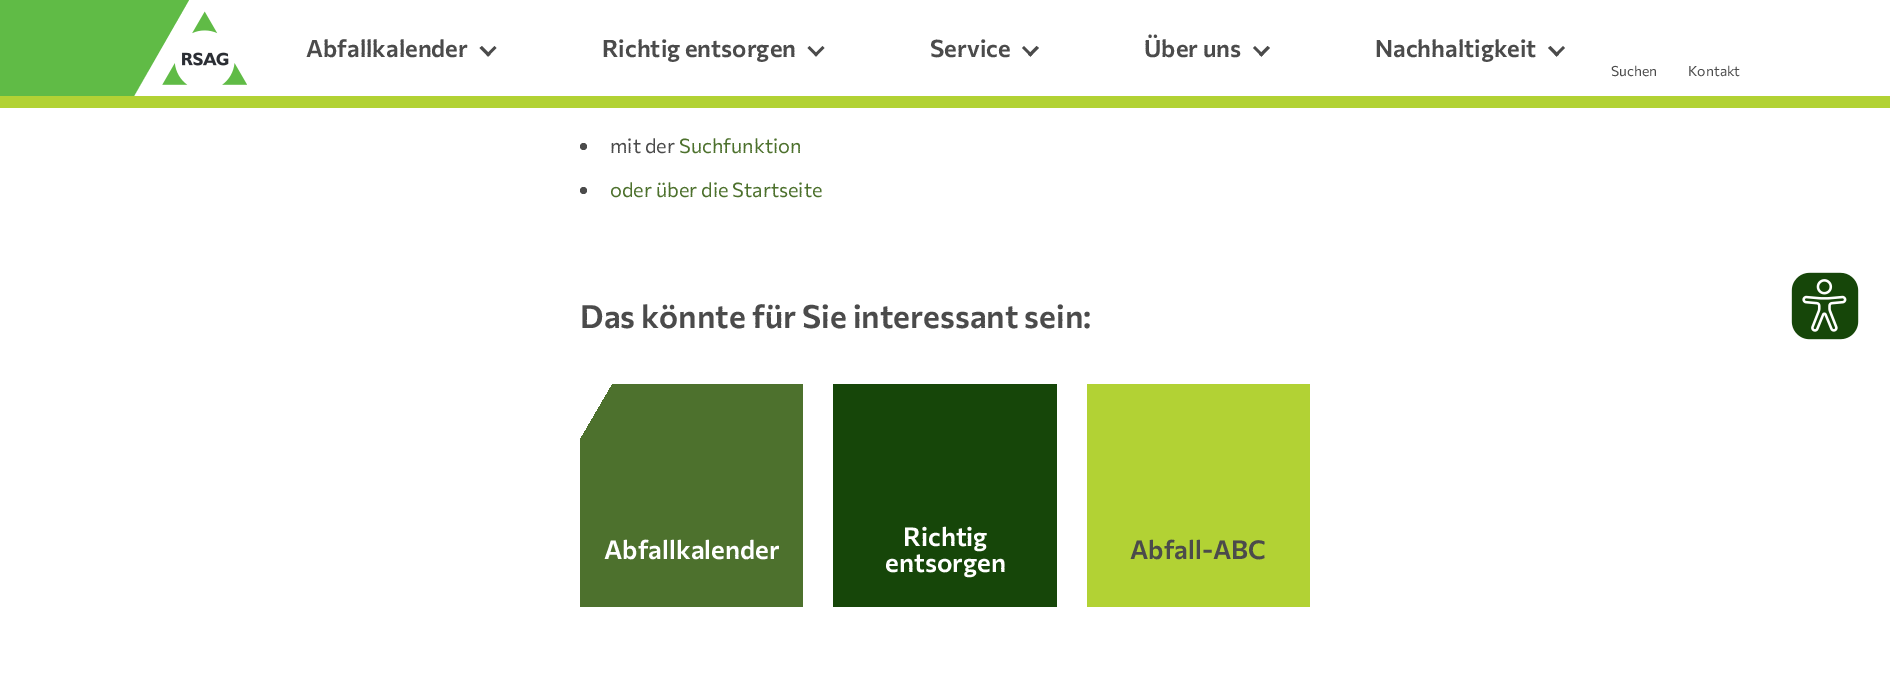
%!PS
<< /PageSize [1890 678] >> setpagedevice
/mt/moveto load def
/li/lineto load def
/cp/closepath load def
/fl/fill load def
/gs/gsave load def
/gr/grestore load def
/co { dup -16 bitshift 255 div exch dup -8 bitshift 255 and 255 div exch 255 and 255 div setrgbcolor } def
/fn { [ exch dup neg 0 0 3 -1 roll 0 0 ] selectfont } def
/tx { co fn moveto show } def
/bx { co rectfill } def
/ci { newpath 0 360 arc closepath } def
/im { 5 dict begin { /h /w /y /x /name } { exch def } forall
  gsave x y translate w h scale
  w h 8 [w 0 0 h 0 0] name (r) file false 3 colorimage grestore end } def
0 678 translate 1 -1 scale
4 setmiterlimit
0 0 1890 678 16#FFFFFF bx
gs 0 0 mt 939 0 li 939 96 li 0 96 li cp clip newpath
<< /ShadingType 2 /ColorSpace /DeviceRGB /Coords [0 48 1890 48] /Extend [true true] /Function << /FunctionType 3 /Domain [0 1] /Functions [<< /FunctionType 2 /Domain [0 1] /C0 [.376 .733 .275] /C1 [.376 .733 .275] /N 1 >> << /FunctionType 2 /Domain [0 1] /C0 [.376 .733 .275] /C1 [1 1 1] /N 1 >> << /FunctionType 2 /Domain [0 1] /C0 [1 1 1] /C1 [1 1 1] /N 1 >>] /Bounds [.25 .5] /Encode [0 1 0 1 0 1] >> >> shfill gr
0 96 1890 12 16#B2D234 bx
134 0 805 96 16#FFFFFF bx
(media/1.raw) 162 11 85 74 im
16#60BB46 co
85 0 mt 189 0 li 134 96 li 30 96 li cp fl
16#4B4B4B co
494.5 46 mt 496.5 48 li 488 56.5 li 486 54.5 li cp fl
482 46 mt 490.5 54.5 li 488 56.5 li 479.5 48 li cp fl
822.5 46 mt 824.5 48 li 816 56.5 li 814 54.5 li cp fl
809.5 46 mt 818 54.5 li 816 56.5 li 807.5 48 li cp fl
1036.5 46 mt 1039 48 li 1030.5 56.5 li 1028 54.5 li cp fl
1024 46 mt 1032.5 54.5 li 1030.5 56.5 li 1022 48 li cp fl
1267.5 46 mt 1270 48 li 1261.5 56.5 li 1259 54.5 li cp fl
1255 46 mt 1263.5 54.5 li 1261.5 56.5 li 1253 48 li cp fl
1563 46 mt 1565 48 li 1556.5 56.5 li 1554.5 54.5 li cp fl
1550.5 46 mt 1559 54.5 li 1556.5 56.5 li 1548 48 li cp fl
583.5 146.5 3.5 ci fl
583.5 190.5 3.5 ci fl
gs 580 384 mt 803 384 li 803 607 li 580 607 li cp clip newpath
<< /ShadingType 2 /ColorSpace /DeviceRGB /Coords [560 419 823 572] /Extend [true true] /Function << /FunctionType 3 /Domain [0 1] /Functions [<< /FunctionType 2 /Domain [0 1] /C0 [1 1 1] /C1 [1 1 1] /N 1 >> << /FunctionType 2 /Domain [0 1] /C0 [.302 .443 .176] /C1 [.302 .443 .176] /N 1 >>] /Bounds [.09] /Encode [0 1 0 1] >> >> shfill gr
833 384 224 223 16#164609 bx
1087 384 223 223 16#B2D234 bx
(media/2.raw) 1791 272 68 68 im
(Abfallkalender) 306 57 /Commissioner-SemiBold 24 16#4B4B4B tx
(Richtig entsorgen) 602 57 /Commissioner-SemiBold 24 16#4B4B4B tx
(Service) 930 57 /Commissioner-SemiBold 24 16#4B4B4B tx
(Über uns) 1144 57 /Commissioner-SemiBold 24 16#4B4B4B tx
(Nachhaltigkeit) 1375 57 /Commissioner-SemiBold 24 16#4B4B4B tx
(Suchen) 1611 76 /Commissioner-Regular 14 16#4B4B4B tx
(Kontakt) 1688 76 /Commissioner-Regular 14 16#4B4B4B tx
(mit der) 610 153 /Commissioner-Regular 20 16#4B4B4B tx
(Suchfunktion) 679 153 /Commissioner-Regular 20 16#4D712D tx
(oder über die Startseite) 610 197 /Commissioner-Regular 20 16#4D712D tx
(Das könnte für Sie interessant sein:) 580 328 /Commissioner-SemiBold 32 16#4B4B4B tx
(Abfallkalender) 604 559 /Commissioner-SemiBold 26 16#FFFFFF tx
(Richtig) 903 546 /Commissioner-SemiBold 26 16#FFFFFF tx
(entsorgen) 885 572 /Commissioner-SemiBold 26 16#FFFFFF tx
(Abfall-ABC) 1130 559 /Commissioner-SemiBold 26 16#4B4B4B tx
showpage
